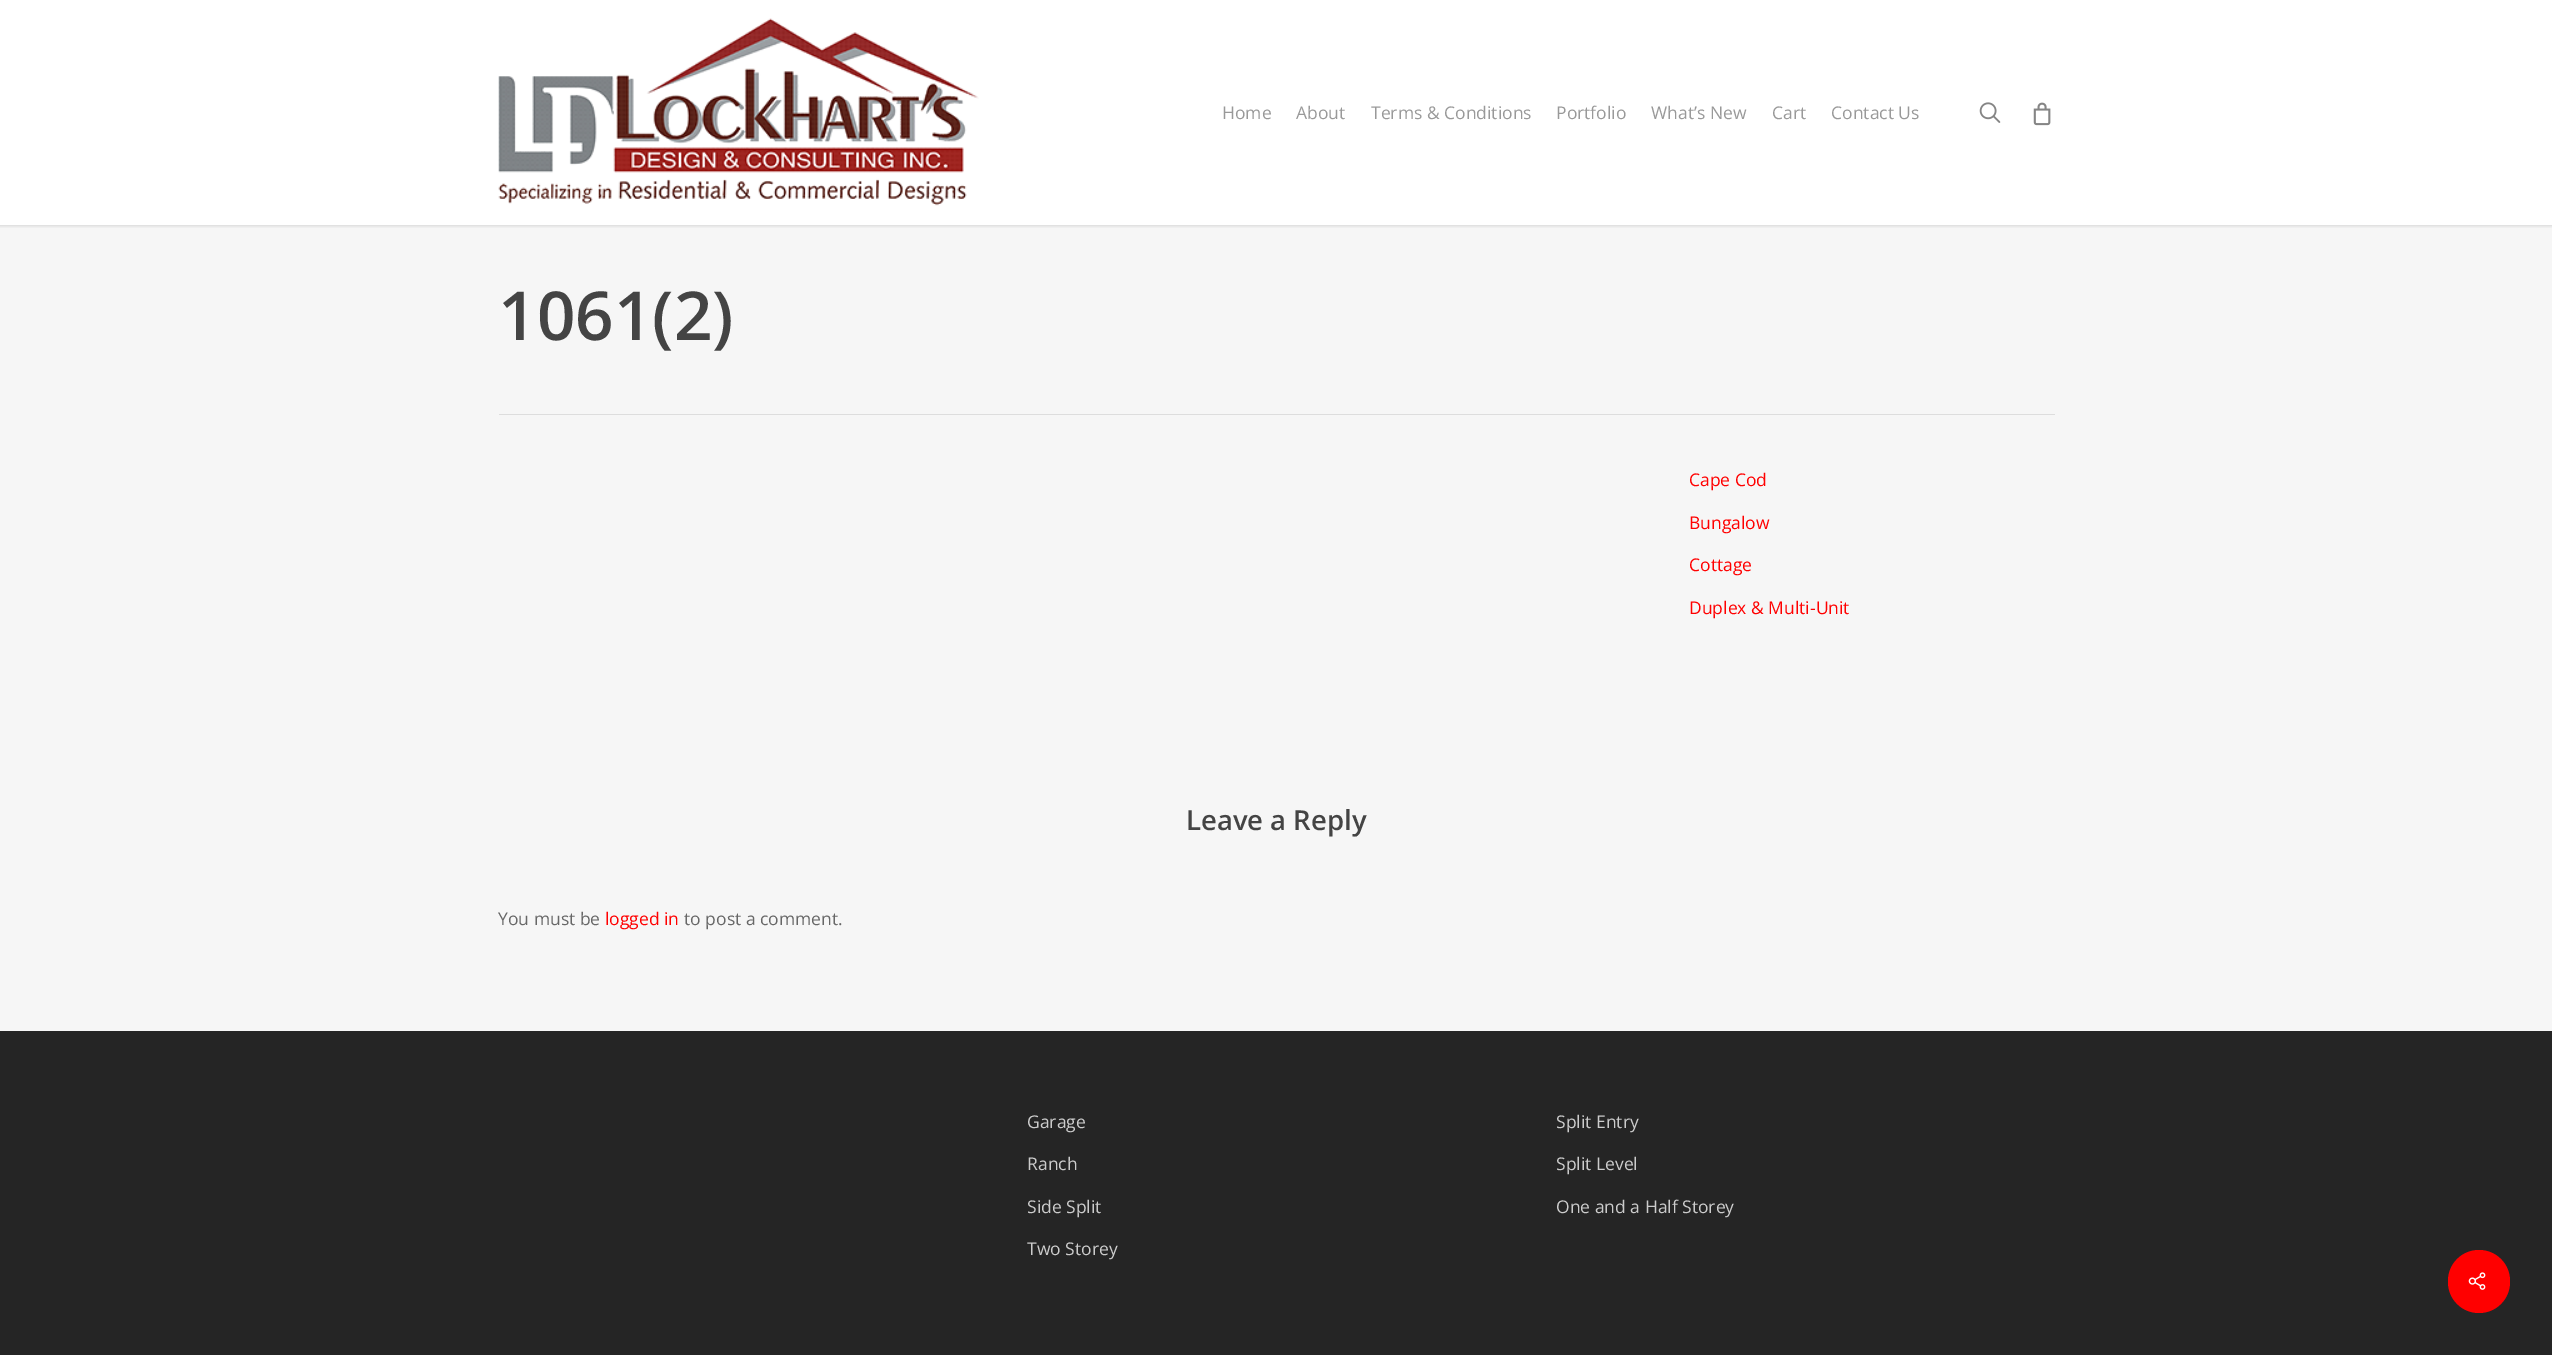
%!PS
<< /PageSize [2552 1355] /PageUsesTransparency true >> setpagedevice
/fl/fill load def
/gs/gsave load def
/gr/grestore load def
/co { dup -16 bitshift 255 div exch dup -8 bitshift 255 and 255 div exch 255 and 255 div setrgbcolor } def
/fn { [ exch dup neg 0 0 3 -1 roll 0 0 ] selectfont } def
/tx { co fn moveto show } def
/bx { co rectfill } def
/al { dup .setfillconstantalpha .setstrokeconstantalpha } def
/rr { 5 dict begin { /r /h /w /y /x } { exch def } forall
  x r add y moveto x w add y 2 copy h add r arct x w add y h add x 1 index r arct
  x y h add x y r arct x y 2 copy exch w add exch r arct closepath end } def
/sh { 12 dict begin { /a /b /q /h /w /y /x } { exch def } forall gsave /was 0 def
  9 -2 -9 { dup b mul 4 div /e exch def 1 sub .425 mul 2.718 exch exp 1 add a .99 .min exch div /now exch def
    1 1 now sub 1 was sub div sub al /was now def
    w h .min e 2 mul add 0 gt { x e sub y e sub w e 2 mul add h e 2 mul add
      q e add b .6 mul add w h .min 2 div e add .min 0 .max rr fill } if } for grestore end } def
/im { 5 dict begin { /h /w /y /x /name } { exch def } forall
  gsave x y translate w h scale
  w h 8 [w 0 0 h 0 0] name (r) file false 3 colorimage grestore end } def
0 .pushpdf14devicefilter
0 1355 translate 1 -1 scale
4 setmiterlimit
0 0 2552 1355 16#FFFFFF bx
0 225 2552 806 16#F6F6F6 bx
gs
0 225 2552 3 rectclip
16#000000 co
0 0 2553 225 0 2 .22 sh
gr
(media/1.raw) 498 18 481 188 im
(media/2.raw) 1979 102 22 21 im
(media/3.raw) 2033 102 18 24 im
499 414 1556 1 16#DDDDDD bx
0 1031 2552 324 16#252525 bx
16#FF0000 co
2448 1250 62 63 31 rr fl
(media/4.raw) 2468 1272 18 18 im
(Home) 1222 119 /OpenSans-Regular 17.5 16#999999 tx
(About) 1296 119 /OpenSans-Regular 17.5 16#999999 tx
(Terms & Conditions) 1371 119 /OpenSans-Regular 17.5 16#999999 tx
(Portfolio) 1556 119 /OpenSans-Regular 17.5 16#999999 tx
(What’s New) 1651 119 /OpenSans-Regular 17.5 16#999999 tx
(Cart) 1772 119 /OpenSans-Regular 17.5 16#999999 tx
(Contact Us) 1831 119 /OpenSans-Regular 17.5 16#999999 tx
(1061\(2\)) 498 340 /OpenSans-SemiBold 67.5 16#444444 tx
(Cape Cod) 1689 486 /OpenSans-Regular 17.5 16#FF0000 tx
(Bungalow) 1689 529 /OpenSans-Regular 17.5 16#FF0000 tx
(Cottage) 1689 571 /OpenSans-Regular 17.5 16#FF0000 tx
(Duplex & Multi-Unit) 1689 614 /OpenSans-Regular 17.5 16#FF0000 tx
(Leave a Reply) 1186 830 /OpenSans-SemiBold 27.5 16#444444 tx
(You must be) 498 925 /OpenSans-Regular 17.5 16#676767 tx
(logged in) 605 925 /OpenSans-Regular 17.5 16#FF0000 tx
(to post a comment.) 684 925 /OpenSans-Regular 17.5 16#676767 tx
(Garage) 1027 1128 /OpenSans-Regular 17.5 16#CCCCCC tx
(Ranch) 1027 1170 /OpenSans-Regular 17.5 16#CCCCCC tx
(Side Split) 1027 1213 /OpenSans-Regular 17.5 16#CCCCCC tx
(Two Storey) 1027 1255 /OpenSans-Regular 17.5 16#CCCCCC tx
(Split Entry) 1556 1128 /OpenSans-Regular 17.5 16#CCCCCC tx
(Split Level) 1556 1170 /OpenSans-Regular 17.5 16#CCCCCC tx
(One and a Half Storey) 1556 1213 /OpenSans-Regular 17.5 16#CCCCCC tx
.poppdf14devicefilter showpage
